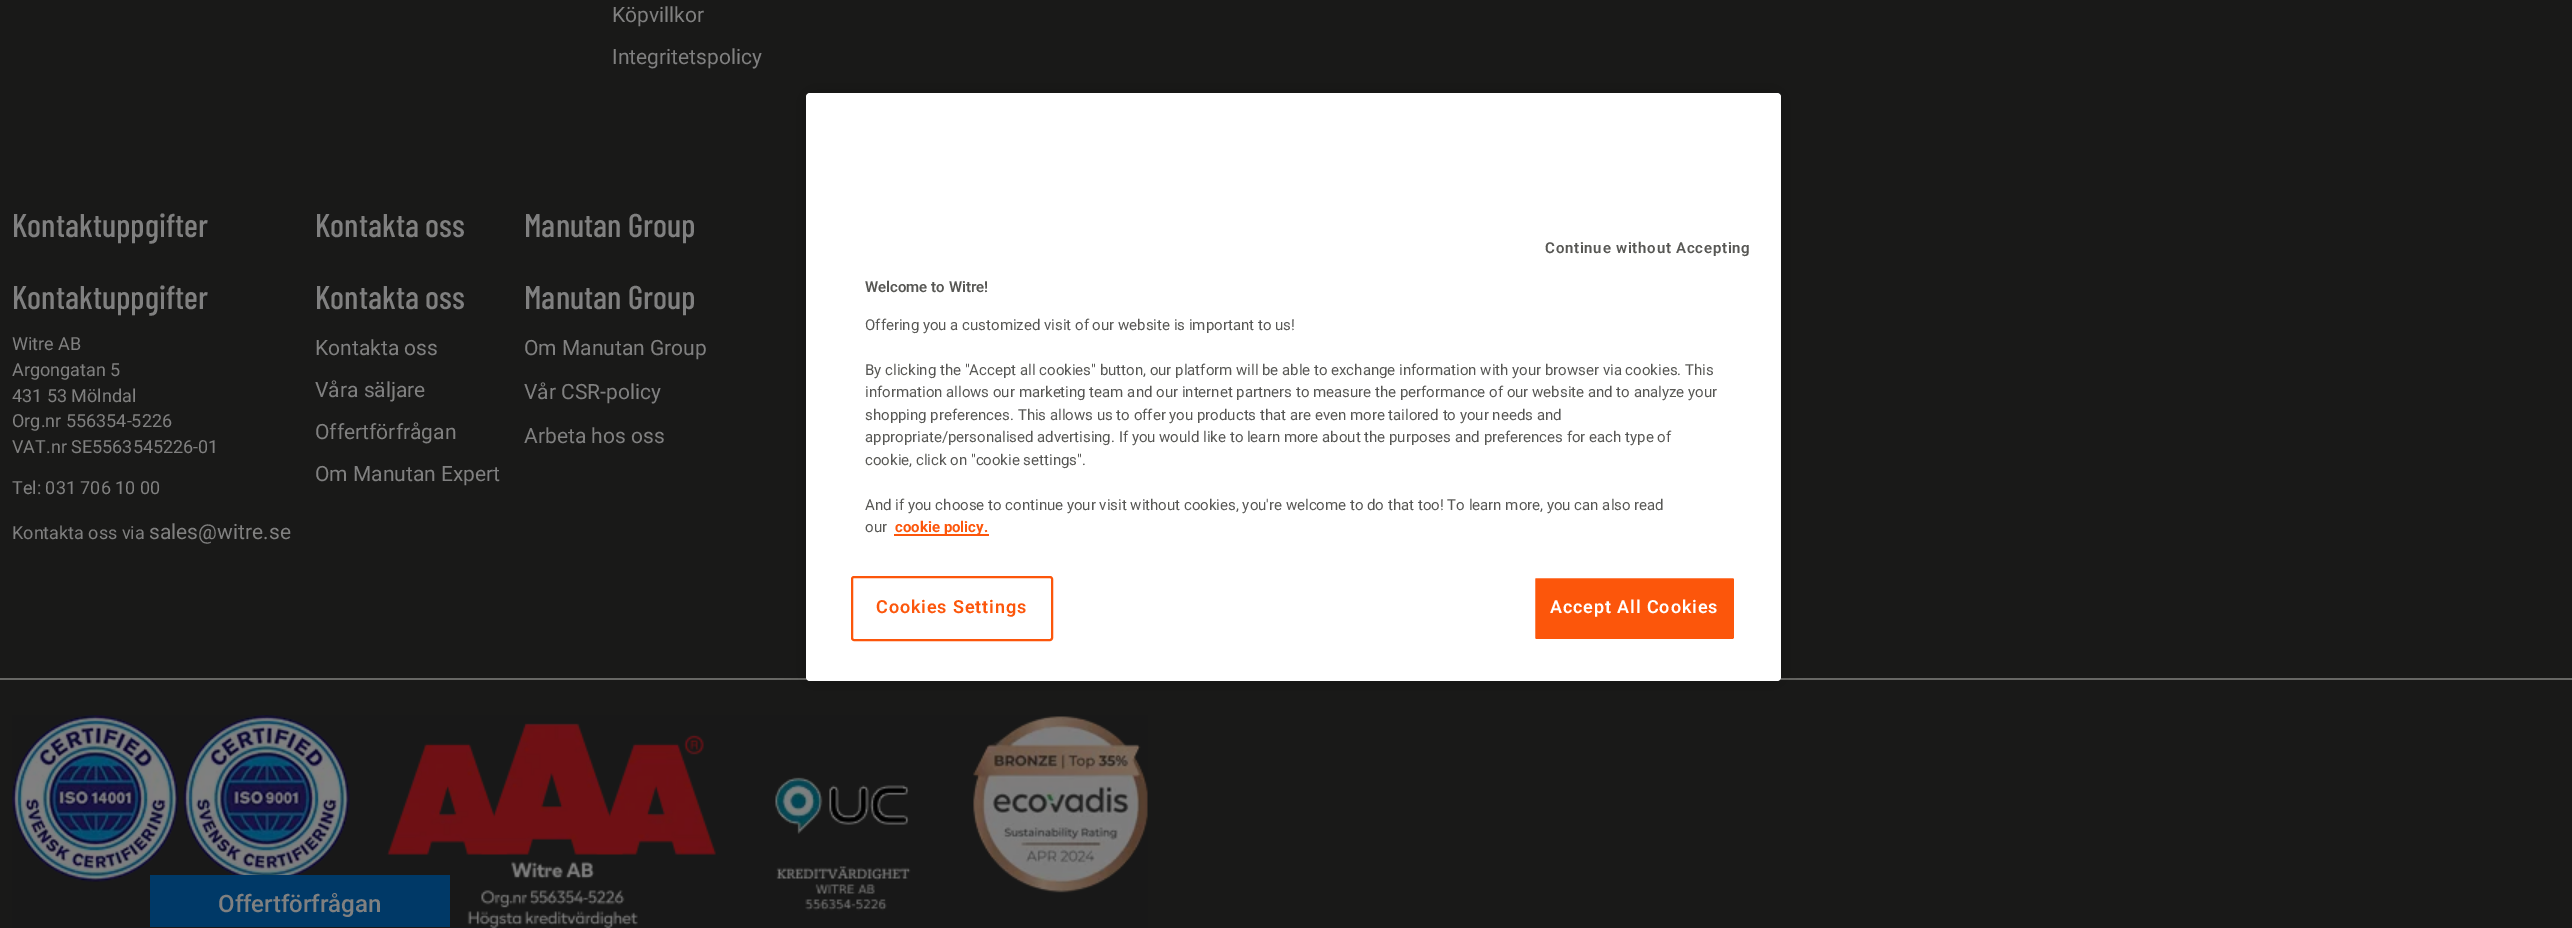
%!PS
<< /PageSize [2572 928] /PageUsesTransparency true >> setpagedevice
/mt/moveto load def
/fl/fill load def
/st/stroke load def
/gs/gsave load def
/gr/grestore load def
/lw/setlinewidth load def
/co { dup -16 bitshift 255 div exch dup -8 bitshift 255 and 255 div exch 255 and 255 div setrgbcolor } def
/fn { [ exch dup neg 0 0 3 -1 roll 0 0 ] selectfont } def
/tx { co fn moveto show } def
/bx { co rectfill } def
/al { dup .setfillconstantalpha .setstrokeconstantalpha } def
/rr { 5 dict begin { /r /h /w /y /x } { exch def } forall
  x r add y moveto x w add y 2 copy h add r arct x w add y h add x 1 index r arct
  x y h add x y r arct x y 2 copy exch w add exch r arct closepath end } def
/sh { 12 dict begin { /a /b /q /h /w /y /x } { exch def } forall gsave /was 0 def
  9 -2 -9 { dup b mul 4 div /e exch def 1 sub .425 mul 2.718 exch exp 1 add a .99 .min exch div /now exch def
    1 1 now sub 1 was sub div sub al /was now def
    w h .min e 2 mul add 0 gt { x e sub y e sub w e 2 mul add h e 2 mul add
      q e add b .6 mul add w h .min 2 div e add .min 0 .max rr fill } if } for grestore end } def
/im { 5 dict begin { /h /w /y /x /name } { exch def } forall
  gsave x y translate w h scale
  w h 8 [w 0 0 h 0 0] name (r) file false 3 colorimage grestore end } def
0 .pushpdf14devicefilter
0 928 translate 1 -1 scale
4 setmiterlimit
0 0 2572 928 16#191918 bx
0 678 2572 2 16#676764 bx
(media/1.raw) 12 715 1136 213 im
150 875 300 52 16#003967 bx
16#000000 co
806 93 975 588 4 13.5 .2 sh
16#FFFFFF co
806 93 975 588 4 rr fl
894 534 95 2 16#FC560B bx
2 lw
852 577 200 63 2 rr st
1534 577 201 63 2 rr gs fl gr
16#FFFFFF co
st
(Köpvillkor) 612 22 /Roboto-Regular 21 16#808080 tx
(Integritetspolicy) 612 64 /Roboto-Regular 21 16#808080 tx
(Kontaktuppgifter) 12 237 /BarlowCondensed-Medium 33 16#808080 tx
(Kontaktuppgifter) 12 309 /BarlowCondensed-Medium 33 16#808080 tx
(Witre AB) 12 350 /Roboto-Regular 18 16#808080 tx
(Argongatan 5) 12 376 /Roboto-Regular 18 16#808080 tx
(431 53 Mölndal) 12 402 /Roboto-Regular 18 16#808080 tx
(Org.nr 556354-5226) 12 427 /Roboto-Regular 18 16#808080 tx
(VAT.nr SE5563545226-01) 12 453 /Roboto-Regular 18 16#808080 tx
(Tel: 031 706 10 00) 12 494 /Roboto-Regular 18 16#808080 tx
(Kontakta oss via) 12 539 /Roboto-Regular 18 16#808080 tx
(sales@witre.se) 149 539 /Roboto-Regular 21 16#808080 tx
(Kontakta oss) 315 237 /BarlowCondensed-Medium 33 16#808080 tx
(Kontakta oss) 315 309 /BarlowCondensed-Medium 33 16#808080 tx
(Kontakta oss) 315 355 /Roboto-Regular 21 16#808080 tx
(Våra säljare) 315 397 /Roboto-Regular 21 16#808080 tx
(Offertförfrågan) 315 439 /Roboto-Regular 21 16#808080 tx
(Om Manutan Expert) 315 481 /Roboto-Regular 21 16#808080 tx
(Manutan Group) 524 237 /BarlowCondensed-Medium 33 16#808080 tx
(Manutan Group) 524 309 /BarlowCondensed-Medium 33 16#808080 tx
(Om Manutan Group) 524 355 /Roboto-Regular 21 16#808080 tx
(Vår CSR-policy) 524 399 /Roboto-Regular 21 16#808080 tx
(Arbeta hos oss) 524 443 /Roboto-Regular 21 16#808080 tx
(Offertförfrågan) 218 912 /Roboto-Medium 24 16#808080 tx
/Roboto-SemiBold 15 fn
16#575754 co
1545 253 mt .75 0 (Continue without Accepting) ashow
(Welcome to Witre!) 865 292 /Roboto-SemiBold 15 16#575754 tx
(Offering you a customized visit of our website is important to us!) 865 330 /Roboto-Regular 15 16#575754 tx
(By clicking the "Accept all cookies" button, our platform will be able to exchange information with your browser via cookies. This) 865 375 /Roboto-Regular 15 16#575754 tx
(information allows our marketing team and our internet partners to measure the performance of our website and to analyze your) 865 397 /Roboto-Regular 15 16#575754 tx
(shopping preferences. This allows us to offer you products that are even more tailored to your needs and) 865 420 /Roboto-Regular 15 16#575754 tx
(appropriate/personalised advertising. If you would like to learn more about the purposes and preferences for each type of) 865 442 /Roboto-Regular 15 16#575754 tx
(cookie, click on "cookie settings".) 865 465 /Roboto-Regular 15 16#575754 tx
(And if you choose to continue your visit without cookies, you're welcome to do that too! To learn more, you can also read) 865 510 /Roboto-Regular 15 16#575754 tx
(our) 865 532 /Roboto-Regular 15 16#575754 tx
(cookie policy.) 895 532 /Roboto-Bold 15 16#FC560B tx
/Roboto-SemiBold 18 fn
876 613 mt .9 0 (Cookies Settings) ashow
16#FFFFFF co
1550 613 mt .9 0 (Accept All Cookies) ashow
.poppdf14devicefilter showpage
